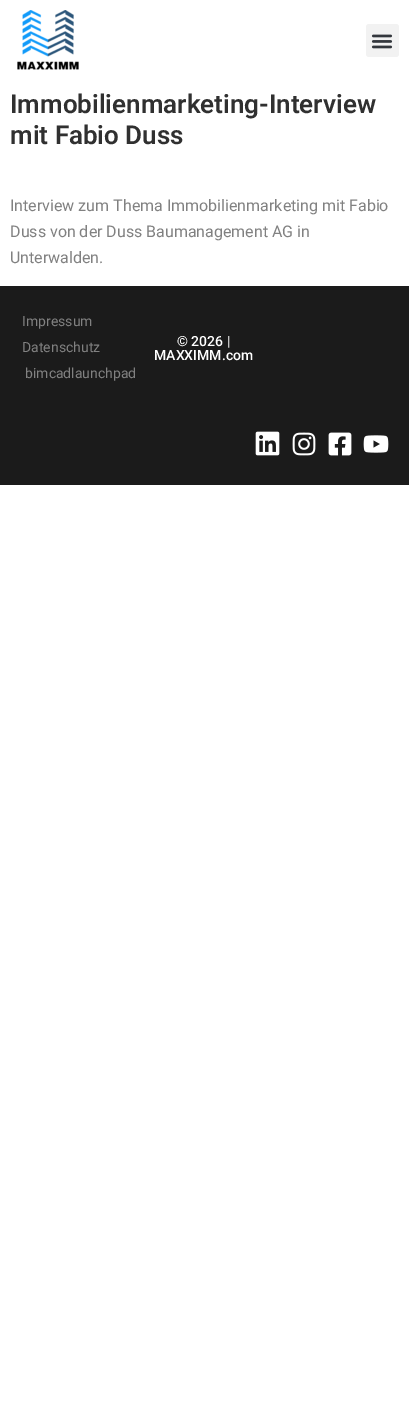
%!PS
<< /PageSize [409 1402] >> setpagedevice
/fl/fill load def
/co { dup -16 bitshift 255 div exch dup -8 bitshift 255 and 255 div exch 255 and 255 div setrgbcolor } def
/fn { [ exch dup neg 0 0 3 -1 roll 0 0 ] selectfont } def
/tx { co fn moveto show } def
/bx { co rectfill } def
/rr { 5 dict begin { /r /h /w /y /x } { exch def } forall
  x r add y moveto x w add y 2 copy h add r arct x w add y h add x 1 index r arct
  x y h add x y r arct x y 2 copy exch w add exch r arct closepath end } def
/im { 5 dict begin { /h /w /y /x /name } { exch def } forall
  gsave x y translate w h scale
  w h 8 [w 0 0 h 0 0] name (r) file false 3 colorimage grestore end } def
0 1402 translate 1 -1 scale
4 setmiterlimit
0 0 409 1402 16#FFFFFF bx
(media/1.raw) 17 10 62 60 im
16#F2F2F2 co
366 24 33 33 3 rr fl
(media/2.raw) 371 34 22 15 im
0 286 409 199 16#1B1B1B bx
(media/3.raw) 255 431 25 25 im
(media/4.raw) 292 432 24 24 im
(media/5.raw) 328 432 24 24 im
(media/6.raw) 363 435 26 18 im
(Immobilienmarketing-Interview) 10 113 /Roboto-SemiBold 26 16#303030 tx
(mit Fabio Duss) 10 144 /Roboto-SemiBold 26 16#303030 tx
(Interview zum Thema Immobilienmarketing mit Fabio) 10 211 /Roboto-Regular 16 16#818181 tx
(Duss von der Duss Baumanagement AG in) 10 237 /Roboto-Regular 16 16#818181 tx
(Unterwalden.) 10 263 /Roboto-Regular 16 16#818181 tx
(Impressum) 22 326 /Roboto-Regular 14 16#818181 tx
(Datenschutz) 22 352 /Roboto-Regular 14 16#818181 tx
(bimcadlaunchpad) 25 378 /Roboto-Regular 14 16#818181 tx
(© 2026 |) 177 346 /Roboto-Medium 14 16#FFFFFF tx
(MAXXIMM.com) 154 360 /Roboto-Medium 14 16#FFFFFF tx
showpage
